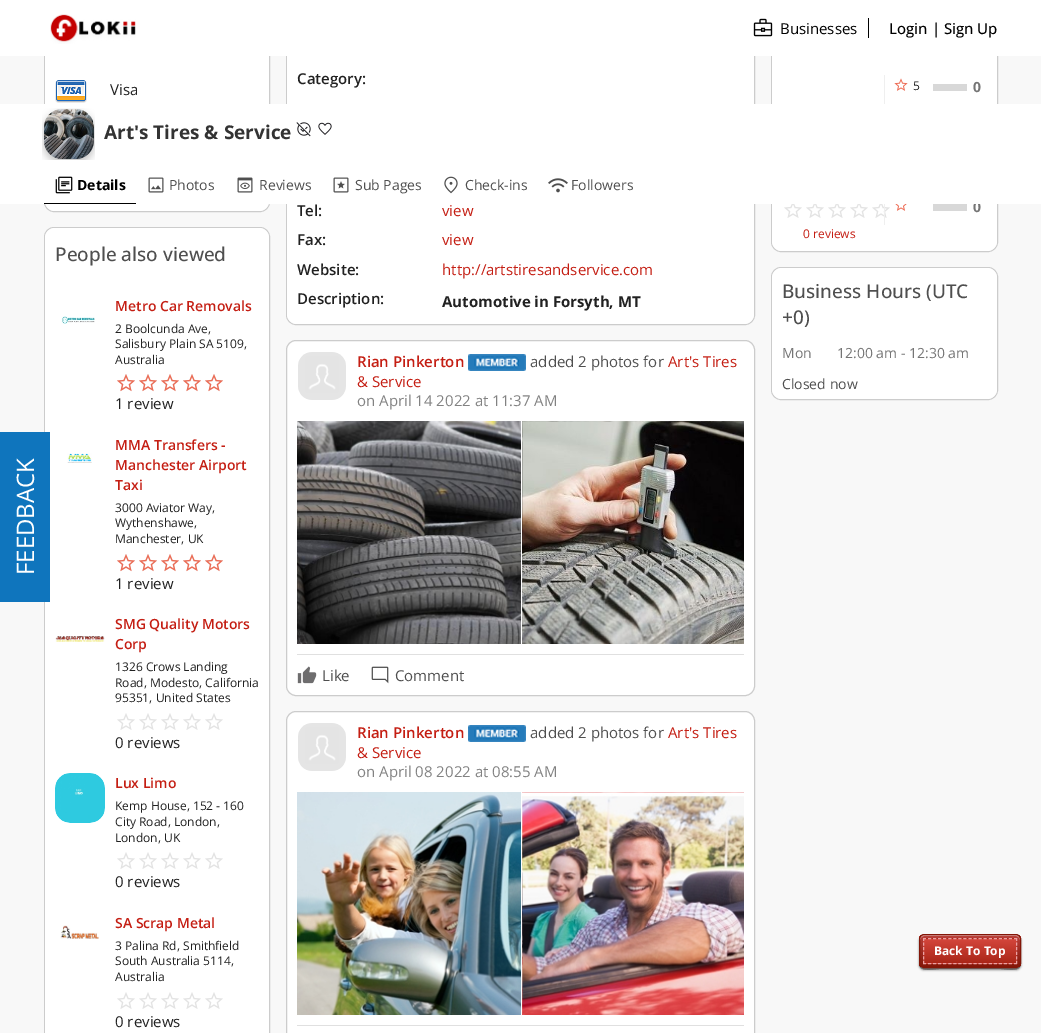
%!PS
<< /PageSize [1041 1033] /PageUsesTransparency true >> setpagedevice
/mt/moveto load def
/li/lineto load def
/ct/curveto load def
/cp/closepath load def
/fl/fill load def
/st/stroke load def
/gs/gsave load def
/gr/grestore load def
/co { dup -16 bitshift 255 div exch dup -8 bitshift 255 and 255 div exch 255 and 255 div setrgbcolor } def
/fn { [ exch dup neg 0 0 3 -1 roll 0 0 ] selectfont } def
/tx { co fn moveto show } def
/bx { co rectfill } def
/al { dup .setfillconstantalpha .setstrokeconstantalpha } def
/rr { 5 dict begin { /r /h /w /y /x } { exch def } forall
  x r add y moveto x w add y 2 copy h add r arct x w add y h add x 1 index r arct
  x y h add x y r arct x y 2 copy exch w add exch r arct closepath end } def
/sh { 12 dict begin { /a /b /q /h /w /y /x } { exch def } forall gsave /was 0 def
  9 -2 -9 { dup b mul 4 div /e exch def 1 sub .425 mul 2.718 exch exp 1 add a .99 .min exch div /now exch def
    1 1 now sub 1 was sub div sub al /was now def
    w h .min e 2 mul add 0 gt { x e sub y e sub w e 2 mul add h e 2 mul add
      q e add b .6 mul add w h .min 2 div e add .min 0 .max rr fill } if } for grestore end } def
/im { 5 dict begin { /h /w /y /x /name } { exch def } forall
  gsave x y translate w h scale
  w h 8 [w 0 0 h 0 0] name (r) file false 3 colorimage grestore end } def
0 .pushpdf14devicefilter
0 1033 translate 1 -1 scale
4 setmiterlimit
0 0 1041 1033 16#F8F8F8 bx
16#CCCCCC co
44.5 16.5 225 195 9.5 rr st
286.5 16.5 468 308 9.5 rr st
771.5 16.5 226 235 9.5 rr st
0 0 1041 56 16#FFFFFF bx
(media/1.raw) 50 14 86 30 im
(media/2.raw) 753 18 20 19 im
868 18 1 20 16#000000 bx
16#CCCCCC co
44.5 227.5 225 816 9.5 rr st
45 276 224 757 16#FFFFFF bx
0 432 50 170 16#0F75BD bx
45 56 224 9 16#FFFFFF bx
45 65 mt 269 65 li 269 201 li 269 206.5 264.5 211 259 211 ct 55 211 li 49.5 211 45 206.5 45 201 ct cp fl
(media/3.raw) 55 80 32 23 im
55 228 mt 259 228 li 264.5 228 269 232.5 269 238 ct 269 276 li 45 276 li 45 238 li 45 232.5 49.5 228 55 228 ct cp fl
(media/4.raw) 61 316 34 8 im
(media/5.raw) 117 374 18 17 im
(media/5.raw) 139 374 18 17 im
(media/5.raw) 161 374 18 17 im
(media/5.raw) 183 374 18 17 im
(media/5.raw) 205 374 18 17 im
(media/6.raw) 117 374 18 18 im
(media/6.raw) 139 374 18 18 im
(media/6.raw) 161 374 18 18 im
(media/6.raw) 183 374 18 18 im
(media/6.raw) 205 374 18 18 im
(media/7.raw) 67 453 25 10 im
(media/5.raw) 117 554 18 17 im
(media/5.raw) 139 554 18 17 im
(media/5.raw) 161 554 18 17 im
(media/5.raw) 183 554 18 17 im
(media/5.raw) 205 554 18 17 im
(media/6.raw) 117 554 18 18 im
(media/6.raw) 139 554 18 18 im
(media/6.raw) 161 554 18 18 im
(media/6.raw) 183 554 18 18 im
(media/6.raw) 205 554 18 18 im
(media/8.raw) 55 636 50 6 im
(media/5.raw) 117 713 18 17 im
(media/5.raw) 139 713 18 17 im
(media/5.raw) 161 713 18 17 im
(media/5.raw) 183 713 18 17 im
(media/5.raw) 205 713 18 17 im
(media/9.raw) 55 773 50 50 im
(media/5.raw) 117 852 18 17 im
(media/5.raw) 139 852 18 17 im
(media/5.raw) 161 852 18 17 im
(media/5.raw) 183 852 18 17 im
(media/5.raw) 205 852 18 17 im
(media/10.raw) 60 925 39 14 im
(media/5.raw) 117 992 18 17 im
(media/5.raw) 139 992 18 17 im
(media/5.raw) 161 992 18 17 im
(media/5.raw) 183 992 18 17 im
(media/5.raw) 205 992 18 17 im
287 56 467 3 16#FFFFFF bx
287 59 mt 754 59 li 754 314 li 754 319.5 749.5 324 744 324 ct 297 324 li 291.5 324 287 319.5 287 314 ct cp fl
286.5 340.5 468 355 9.5 rr gs fl gr
16#CCCCCC co
st
(media/11.raw) 298 352 48 48 im
(media/12.raw) 468 354 58 17 im
(media/13.raw) 297 421 224 223 im
(media/14.raw) 522 421 222 223 im
297 654 447 1 16#E0E0E0 bx
(media/15.raw) 297 666 20 18 im
(media/16.raw) 371 666 18 18 im
16#FFFFFF co
286.5 711.5 468 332 9.5 rr gs fl gr
16#CCCCCC co
st
(media/11.raw) 298 723 48 48 im
(media/12.raw) 468 725 58 17 im
(media/17.raw) 297 792 224 223 im
(media/18.raw) 522 792 222 223 im
297 1025 447 1 16#E0E0E0 bx
772 56 225 9 16#FFFFFF bx
772 65 mt 997 65 li 997 241 li 997 246.5 992.5 251 987 251 ct 782 251 li 776.5 251 772 246.5 772 241 ct cp fl
(media/21.raw) 872 204 18 14 im
884 75 1 150 16#EFEFEF bx
(media/19.raw) 894 78 14 13 im
933 84 34 7 16#D8D8D8 bx
(media/20.raw) 895 204 12 7 im
933 204 34 7 16#D8D8D8 bx
(media/21.raw) 784 204 18 14 im
(media/21.raw) 806 204 18 14 im
(media/21.raw) 828 204 18 14 im
(media/21.raw) 850 204 18 14 im
16#CCCCCC co
771.5 267.5 226 132 9.5 rr st
16#FFFFFF co
782 268 mt 987 268 li 992.5 268 997 272.5 997 278 ct 997 336 li 772 336 li 772 278 li 772 272.5 776.5 268 782 268 ct cp fl
772 336 mt 997 336 li 997 389 li 997 394.5 992.5 399 987 399 ct 782 399 li 776.5 399 772 394.5 772 389 ct cp fl
16#000000 co
919 936 102 34 5 1 .5 sh
0.7 al
919 963 mt 919 973 934 969 939 969 ct 1001 969 li 1006 969 1021 973 1021 963 ct 1021 966 1019 968 1016 968 ct 924 968 li 921 968 919 966 919 963 ct cp fl
0.3 al
16#FFFFFF co
919 963 mt 919 973 934 969 939 969 ct 1001 969 li 1006 969 1021 973 1021 963 ct 1021 966 1019 968 1016 968 ct 924 968 li 921 968 919 966 919 963 ct cp fl
gs
919 934 102 34 5 rr clip newpath
1 al
gs 919 935 mt 1021 935 li 1021 967 li 919 967 li cp clip newpath
<< /ShadingType 2 /ColorSpace /DeviceRGB /Coords [970 935 970 967] /Extend [true true] /Function << /FunctionType 2 /Domain [0 1] /C0 [.733 .255 .231] /C1 [.514 .086 .031] /N 1 >> >> shfill gr
gr
0.5 al
924 936 mt 1016 936 li 1018 936 1020 938 1020 940 ct 1020 931 1005 935 1001 935 ct 939 935 li 935 935 920 931 920 940 ct 920 938 922 936 924 936 ct cp fl
1 al
16#831608 co
919.5 934.5 101 33 4.5 rr st
gs 923 938 mt 1017 938 li 1017 939 li 923 939 li cp clip newpath
<< /ShadingType 2 /ColorSpace /DeviceRGB /Coords [970 915 970 939] /Extend [true true] /Function << /FunctionType 2 /Domain [0 1] /C0 [.831 .275 .235] /C1 [.667 .149 .094] /N 1 >> >> shfill gr
gs 923 939 mt 1017 939 li 1017 963 li 923 963 li cp clip newpath
<< /ShadingType 2 /ColorSpace /DeviceRGB /Coords [970 939 970 963] /Extend [true true] /Function << /FunctionType 2 /Domain [0 1] /C0 [.831 .275 .235] /C1 [.667 .149 .094] /N 1 >> >> shfill gr
gs 923 963 mt 1017 963 li 1017 964 li 923 964 li cp clip newpath
<< /ShadingType 2 /ColorSpace /DeviceRGB /Coords [970 963 970 987] /Extend [true true] /Function << /FunctionType 2 /Domain [0 1] /C0 [.831 .275 .235] /C1 [.667 .149 .094] /N 1 >> >> shfill gr
16#EBA1A3 co
[3 2.06] 0 setdash
923 938.5 mt 1017 938.5 li st
[3 1.6] 0 setdash
1016.5 938 mt 1016.5 964 li st
[3 2.06] 0 setdash
923 963.5 mt 1017 963.5 li st
[3 1.6] 0 setdash
923.5 938 mt 923.5 964 li st
(Businesses) 780 34 /OpenSans-Regular 15 16#000000 tx
(Login | Sign Up) 889 34 /OpenSans-Medium 15 16#000000 tx
/OpenSans-Regular 24 fn
16#FFFFFF co
gs 34 575 translate -90 rotate 0 0 mt (FEEDBACK) show gr
(Visa) 110 95 /OpenSans-Regular 15 16#212121 tx
(People also viewed) 55 261 /OpenSans-Medium 19 16#4F4F4F tx
(Metro Car Removals) 115 311 /OpenSans-SemiBold 14 16#C41E13 tx
(2 Boolcunda Ave,) 115 333 /OpenSans-Regular 12 16#212121 tx
(Salisbury Plain SA 5109,) 115 348 /OpenSans-Regular 12 16#212121 tx
(Australia) 115 364 /OpenSans-Regular 12 16#212121 tx
(1 review) 115 409 /OpenSans-Regular 15 16#212121 tx
(MMA Transfers -) 115 450 /OpenSans-SemiBold 14 16#C41E13 tx
(Manchester Airport) 115 470 /OpenSans-SemiBold 14 16#C41E13 tx
(Taxi) 115 490 /OpenSans-SemiBold 14 16#C41E13 tx
(3000 Aviator Way,) 115 512 /OpenSans-Regular 12 16#212121 tx
(Wythenshawe,) 115 527 /OpenSans-Regular 12 16#212121 tx
(Manchester, UK) 115 543 /OpenSans-Regular 12 16#212121 tx
(1 review) 115 589 /OpenSans-Regular 15 16#212121 tx
(SMG Quality Motors) 115 629 /OpenSans-SemiBold 14 16#C41E13 tx
(Corp) 115 649 /OpenSans-SemiBold 14 16#C41E13 tx
(1326 Crows Landing) 115 671 /OpenSans-Regular 12 16#212121 tx
(Road, Modesto, California) 115 687 /OpenSans-Regular 12 16#212121 tx
(95351, United States) 115 702 /OpenSans-Regular 12 16#212121 tx
(0 reviews) 115 748 /OpenSans-Regular 15 16#212121 tx
(Lux Limo) 115 788 /OpenSans-SemiBold 14 16#C41E13 tx
(Kemp House, 152 - 160) 115 810 /OpenSans-Regular 12 16#212121 tx
(City Road, London,) 115 826 /OpenSans-Regular 12 16#212121 tx
(London, UK) 115 842 /OpenSans-Regular 12 16#212121 tx
(0 reviews) 115 887 /OpenSans-Regular 15 16#212121 tx
(SA Scrap Metal) 115 928 /OpenSans-SemiBold 14 16#C41E13 tx
(3 Palina Rd, Smithfield) 115 950 /OpenSans-Regular 12 16#212121 tx
(South Australia 5114,) 115 965 /OpenSans-Regular 12 16#212121 tx
(Australia) 115 981 /OpenSans-Regular 12 16#212121 tx
(0 reviews) 115 1027 /OpenSans-Regular 15 16#212121 tx
(Category:) 297 84 /OpenSans-SemiBold 15 16#212121 tx
(Tel:) 297 216 /OpenSans-SemiBold 15 16#212121 tx
(view) 442 216 /OpenSans-Regular 15 16#C41E13 tx
(Fax:) 297 245 /OpenSans-SemiBold 15 16#212121 tx
(view) 442 245 /OpenSans-Regular 15 16#C41E13 tx
(Website:) 297 275 /OpenSans-SemiBold 15 16#212121 tx
(http://artstiresandservice.com) 442 275 /OpenSans-Regular 15 16#C41E13 tx
(Description:) 297 304 /OpenSans-SemiBold 15 16#212121 tx
(Automotive in Forsyth, MT) 442 307 /OpenSans-Bold 15 16#212121 tx
(Rian Pinkerton) 357 367 /OpenSans-SemiBold 15 16#C41E13 tx
(added 2 photos for) 530 367 /OpenSans-Regular 15 16#4F4F4F tx
(Art's Tires) 668 367 /OpenSans-Regular 15 16#C41E13 tx
(& Service) 357 387 /OpenSans-Regular 15 16#C41E13 tx
(on April 14 2022 at 11:37 AM) 357 406 /OpenSans-Regular 15 16#828282 tx
(Like) 322 681 /OpenSans-Regular 15 16#4F4F4F tx
(Comment) 395 681 /OpenSans-Regular 15 16#4F4F4F tx
(Rian Pinkerton) 357 738 /OpenSans-SemiBold 15 16#C41E13 tx
(added 2 photos for) 530 738 /OpenSans-Regular 15 16#4F4F4F tx
(Art's Tires) 668 738 /OpenSans-Regular 15 16#C41E13 tx
(& Service) 357 758 /OpenSans-Regular 15 16#C41E13 tx
(on April 08 2022 at 08:55 AM) 357 777 /OpenSans-Regular 15 16#828282 tx
(5) 913 90 /OpenSans-Regular 12 16#212121 tx
(0) 973 92 /OpenSans-Bold 14 16#757575 tx
(0) 973 212 /OpenSans-Bold 14 16#757575 tx
(0 reviews) 803 238 /OpenSans-Regular 12 16#C41E13 tx
(Business Hours \(UTC) 782 298 /OpenSans-Medium 19 16#4F4F4F tx
(+0\)) 782 324 /OpenSans-Medium 19 16#4F4F4F tx
(Mon) 782 358 /OpenSans-Regular 14 16#757575 tx
(12:00 am - 12:30 am) 837 358 /OpenSans-Regular 14 16#757575 tx
(Closed now) 782 389 /OpenSans-Regular 14 16#4F4F4F tx
0 104 1041 100 16#FFFFFF bx
(media/22.raw) 42 108 53 52 im
(Art's Tires & Service) 104 139 /OpenSans-Bold 19 16#333333 tx
(media/23.raw) 296 122 15 15 im
(media/24.raw) 318 122 14 13 im
44 203 92 1 16#000000 bx
(media/25.raw) 55 176 18 18 im
(Details) 77 190 /OpenSans-Bold 14 16#000000 tx
(media/26.raw) 148 177 16 16 im
(Photos) 169 190 /OpenSans-Regular 14 16#4F4F4F tx
(media/27.raw) 237 177 16 16 im
(Reviews) 259 190 /OpenSans-Regular 14 16#4F4F4F tx
(media/28.raw) 333 177 16 16 im
(Sub Pages) 355 190 /OpenSans-Regular 14 16#4F4F4F tx
(media/29.raw) 444 176 14 18 im
(Check-ins) 465 190 /OpenSans-Regular 14 16#4F4F4F tx
(media/30.raw) 548 178 20 15 im
(Followers) 571 190 /OpenSans-Regular 14 16#4F4F4F tx
(Back To Top) 934 955 /OpenSans-Bold 12 16#FFFFFF tx
.poppdf14devicefilter showpage
